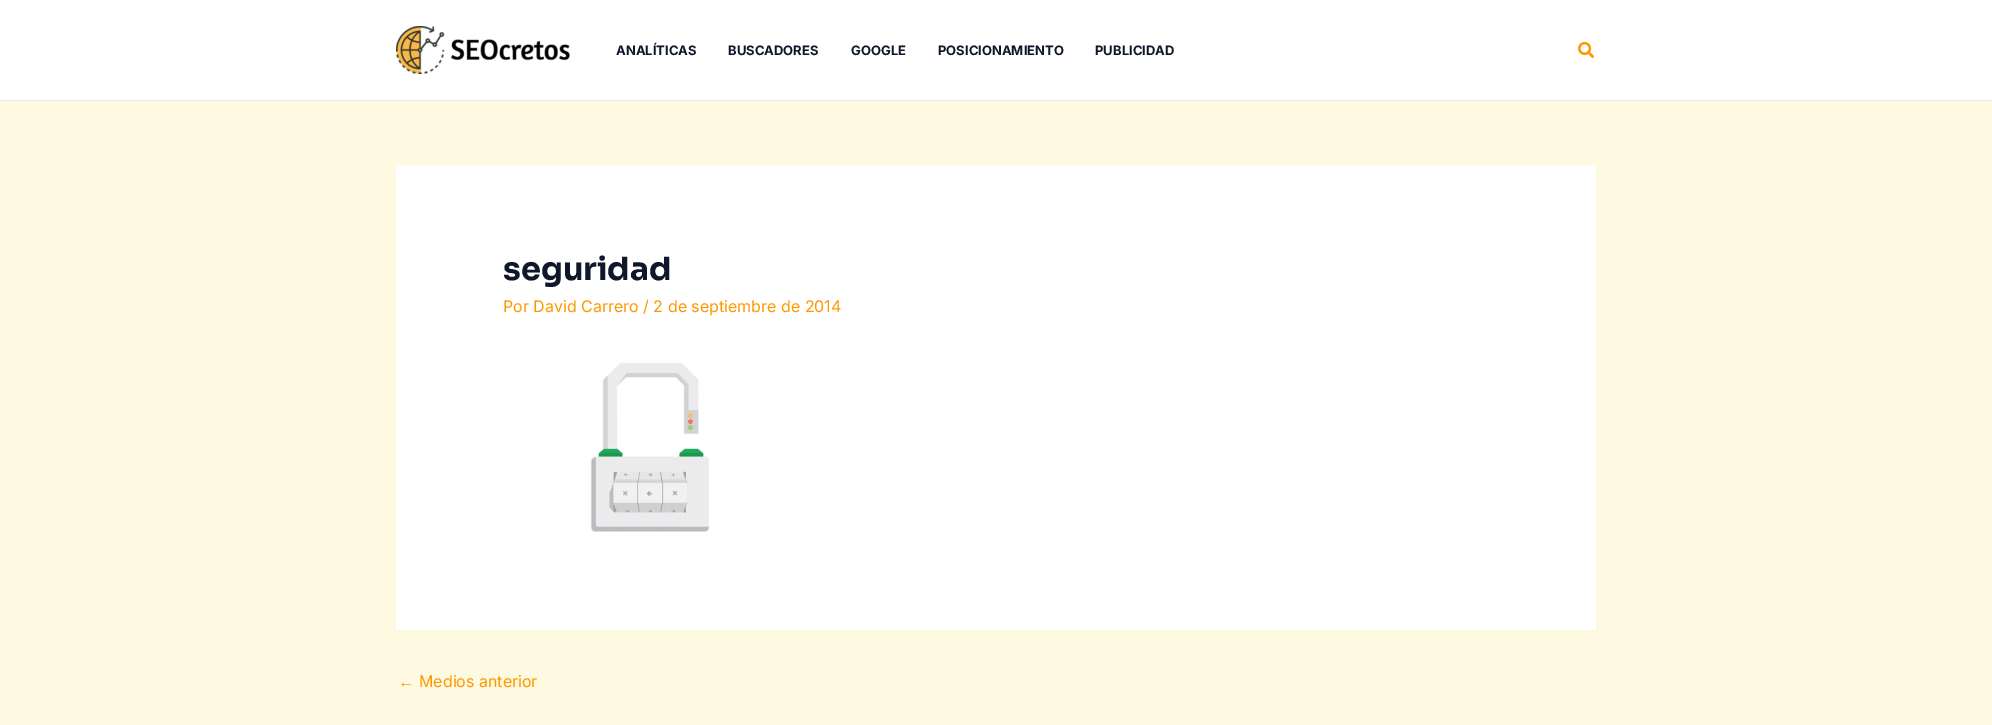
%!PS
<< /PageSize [1992 725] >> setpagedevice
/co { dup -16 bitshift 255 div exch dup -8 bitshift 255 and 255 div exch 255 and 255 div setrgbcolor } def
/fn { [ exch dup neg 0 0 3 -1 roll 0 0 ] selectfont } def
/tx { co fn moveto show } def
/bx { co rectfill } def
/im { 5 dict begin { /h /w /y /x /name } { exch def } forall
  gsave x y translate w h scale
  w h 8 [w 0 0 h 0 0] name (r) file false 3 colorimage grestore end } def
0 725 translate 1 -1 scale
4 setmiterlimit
0 0 1992 725 16#FEF9E1 bx
0 0 1992 100 16#FFFFFF bx
0 100 1992 1 16#EAEAEA bx
(media/1.raw) 396 26 174 48 im
(media/2.raw) 1578 41 16 17 im
396 165 1200 465 16#FFFFFF bx
(media/3.raw) 590 362 120 170 im
(ANALÍTICAS) 616 55 /Inter-Bold 13 16#0F172A tx
(BUSCADORES) 728 55 /Inter-Bold 13 16#0F172A tx
(GOOGLE) 851 55 /Inter-Bold 13 16#0F172A tx
(POSICIONAMIENTO) 938 55 /Inter-Bold 13 16#0F172A tx
(PUBLICIDAD) 1095 55 /Inter-Bold 13 16#0F172A tx
(seguridad) 503 280 /Sora-Bold 32 16#0F172A tx
(Por David Carrero / 2 de septiembre de 2014) 503 312 /Inter-Regular 16 16#FD9800 tx
(←) 398 687 /LiberationSans-Regular 16 16#FD9800 tx
(Medios anterior) 419 687 /Inter-Regular 16 16#FD9800 tx
showpage
